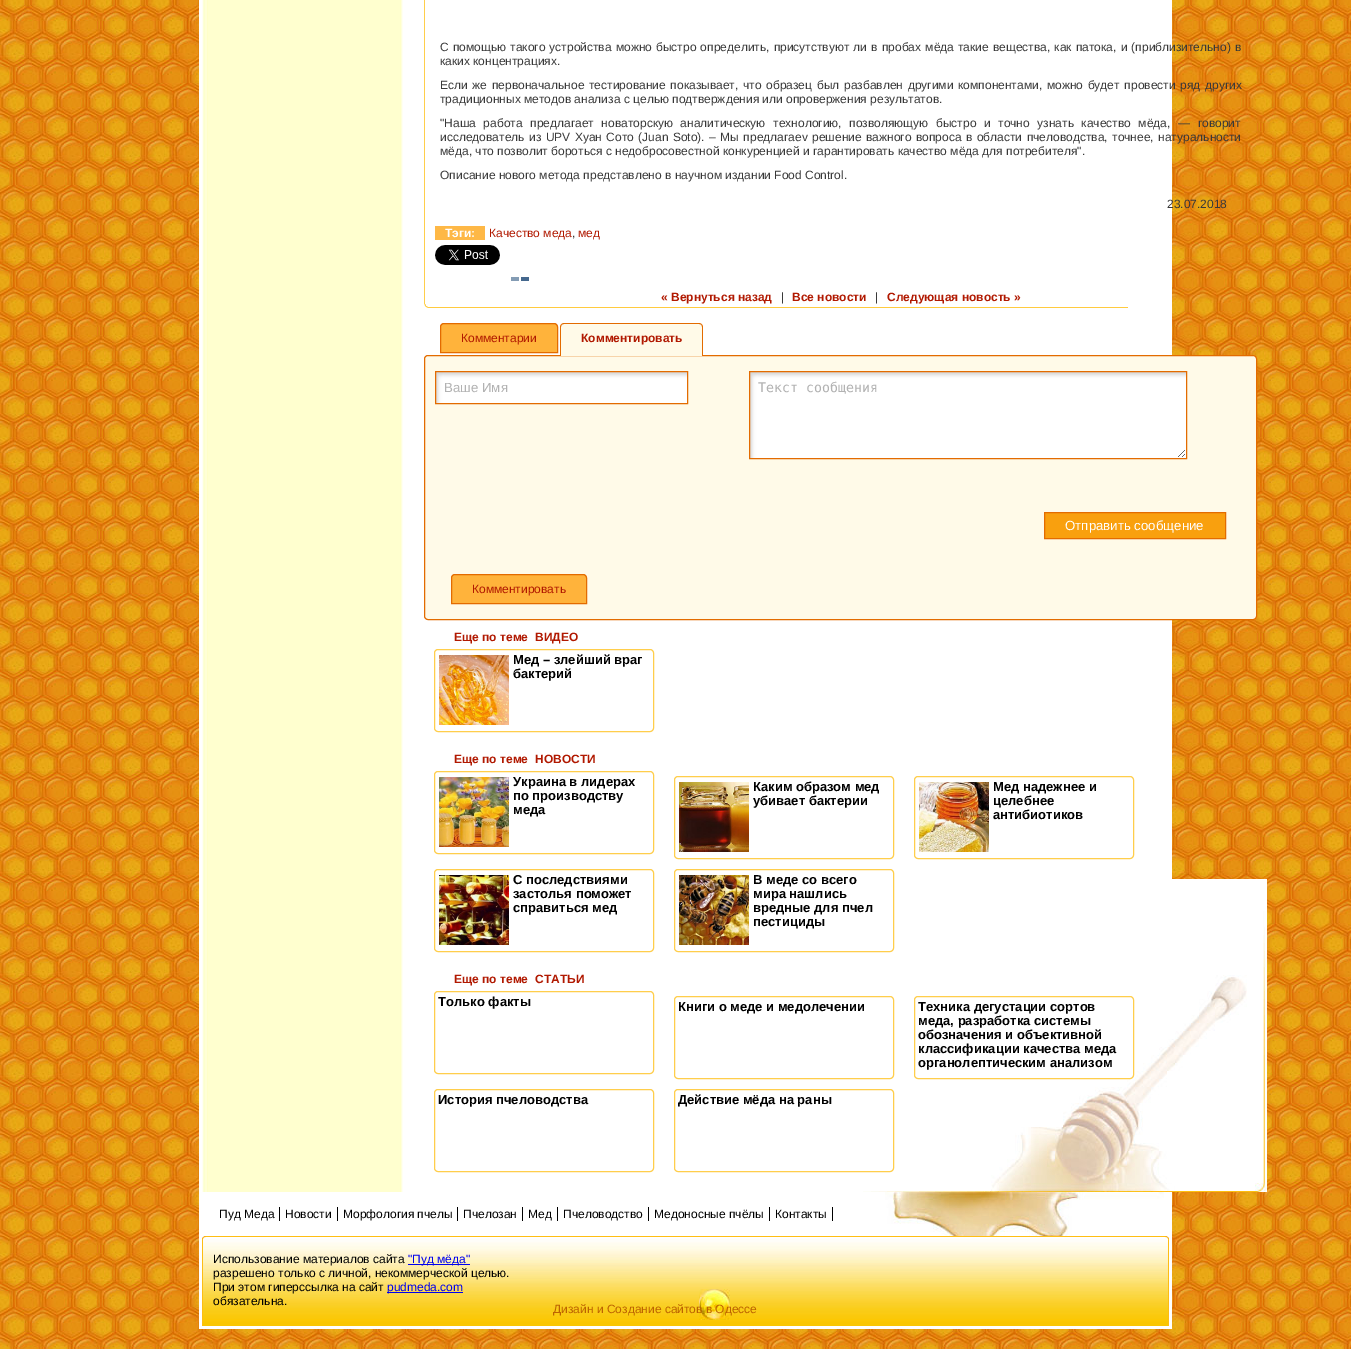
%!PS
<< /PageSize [1351 1349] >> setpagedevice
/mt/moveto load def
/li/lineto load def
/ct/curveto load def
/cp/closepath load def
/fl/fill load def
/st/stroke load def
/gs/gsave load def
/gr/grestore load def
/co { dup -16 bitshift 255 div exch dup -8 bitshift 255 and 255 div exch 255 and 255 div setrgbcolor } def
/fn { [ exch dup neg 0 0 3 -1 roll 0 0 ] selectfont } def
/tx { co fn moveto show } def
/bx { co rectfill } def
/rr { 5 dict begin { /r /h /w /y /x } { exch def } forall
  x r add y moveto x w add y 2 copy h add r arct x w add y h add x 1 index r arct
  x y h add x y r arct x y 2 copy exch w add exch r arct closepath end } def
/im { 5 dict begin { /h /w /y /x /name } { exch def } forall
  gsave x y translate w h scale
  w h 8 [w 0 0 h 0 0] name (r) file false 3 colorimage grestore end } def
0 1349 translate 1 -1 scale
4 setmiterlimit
0 0 1351 1349 16#FFFFFF bx
(media/1.raw) 0 0 1351 1349 im
199 0 973 1329 16#FFFFFF bx
(media/2.raw) 863 879 404 313 im
(media/3.raw) 202 0 201 1192 im
424 0 1 304 16#FFCE4B bx
435 226 50 14 16#FEB846 bx
(media/4.raw) 435 245 65 20 im
(media/5.raw) 511 277 18 4 im
(media/6.raw) 424 304 4 4 im
428 307 700 1 16#FFCB3F bx
16#FFB33B co
444 323.5 mt 554 323.5 li 556 323.5 557.5 325 557.5 327 ct 557.5 352.5 li 440.5 352.5 li 440.5 327 li 440.5 325 442 323.5 444 323.5 ct cp gs fl gr
16#E36B00 co
st
16#FFFAE8 co
424.5 355.5 832 264 3.5 rr gs fl gr
16#E36B00 co
st
16#FFFAE8 co
564 323 mt 699 323 li 701 323 703 325 703 327 ct 703 356 li 560 356 li 560 327 li 560 325 562 323 564 323 ct cp fl
16#E36B00 co
564 323 mt 699 323 li 701 323 703 325 703 327 ct 703 356 li 560 356 li 560 327 li 560 325 562 323 564 323 ct cp 564 324 mt 699 324 li 701 324 702 325 702 327 ct 702 356 li 561 356 li 561 327 li 561 325 562 324 564 324 ct cp eofill
(media/7.raw) 436 372 251 31 im
435.5 371.5 252 32 rectstroke
(media/8.raw) 750 372 436 86 im
749.5 371.5 437 87 rectstroke
16#F9A00E co
1044.5 512.5 mt 1225.5 512.5 li 1225.5 538.5 li 1044.5 538.5 li cp gs fl gr
16#E36B00 co
st
16#FFB33B co
455 574.5 mt 583 574.5 li 585 574.5 586.5 576 586.5 578 ct 586.5 603.5 li 451.5 603.5 li 451.5 578 li 451.5 576 453 574.5 455 574.5 ct cp gs fl gr
16#E36B00 co
st
16#FFCE4B co
434.5 649.5 219 82 3.5 rr st
(media/9.raw) 439 655 70 70 im
434.5 771.5 219 82 3.5 rr st
(media/10.raw) 439 777 70 70 im
674.5 776.5 219 82 3.5 rr st
(media/11.raw) 679 782 70 70 im
914.5 776.5 219 82 3.5 rr st
(media/12.raw) 919 782 70 70 im
434.5 869.5 219 82 3.5 rr st
(media/13.raw) 439 875 70 70 im
674.5 869.5 219 82 3.5 rr st
(media/14.raw) 679 875 70 70 im
434.5 991.5 219 82 3.5 rr st
674.5 996.5 219 82 3.5 rr st
914.5 996.5 219 82 3.5 rr st
434.5 1089.5 219 82 3.5 rr st
674.5 1089.5 219 82 3.5 rr st
(media/15.raw) 885 1192 279 44 im
279 1207 1 14 16#000000 bx
337 1207 1 14 16#000000 bx
457 1207 1 14 16#000000 bx
522 1207 1 14 16#000000 bx
557 1207 1 14 16#000000 bx
648 1207 1 14 16#000000 bx
769 1207 1 14 16#000000 bx
832 1207 1 14 16#000000 bx
(media/16.raw) 202 1236 967 3 im
(media/17.raw) 203 1239 965 87 im
1168 1239 1 87 16#FDBD13 bx
202 1239 1 87 16#FDBD13 bx
408 1264 62 1 16#0000EE bx
387 1292 76 1 16#0000EE bx
(media/18.raw) 699 1289 31 31 im
/LiberationSans-Regular 12 fn
16#393939 co
440 51 mt .8 0 32 (С помощью такого устройства можно быстро определить, присутствуют ли в пробах мёда такие вещества, как патока, и \(приблизительно\) в) widthshow
(каких концентрациях.) 440 65 /LiberationSans-Regular 12 16#393939 tx
440 89 mt 1.4 0 32 (Если же первоначальное тестирование показывает, что образец был разбавлен другими компонентами, можно будет провести ряд других) widthshow
(традиционных методов анализа с целью подтверждения или опровержения результатов.) 440 103 /LiberationSans-Regular 12 16#393939 tx
440 127 mt 4.25 0 32 ("Наша работа предлагает новаторскую аналитическую технологию, позволяющую быстро и точно узнать качество мёда, — говорит) widthshow
440 141 mt 1.1 0 32 (исследователь из UPV Хуан Сото \(Juan Soto\). – Мы предлагаеv решение важного вопроса в области пчеловодства, точнее, натуральности) widthshow
(мёда, что позволит бороться с недобросовестной конкуренцией и гарантировать качество мёда для потребителя".) 440 155 /LiberationSans-Regular 12 16#393939 tx
(Описание нового метода представлено в научном издании Food Control.) 440 179 /LiberationSans-Regular 12 16#393939 tx
(23.07.2018) 1167 208 /LiberationSans-Regular 12 16#393939 tx
(Тэги:) 445 237 /LiberationSans-Bold 12 16#FFFFFF tx
(Качество меда) 489 237 /LiberationSans-Regular 12 16#B11901 tx
(,) 572 237 /LiberationSans-Regular 12 16#393939 tx
(мед) 578 237 /LiberationSans-Regular 12 16#B11901 tx
(« Вернуться назад) 661 301 /LiberationSans-Bold 12 16#B11901 tx
(|) 781 301 /LiberationSans-Regular 12 16#393939 tx
(Все новости) 792 301 /LiberationSans-Bold 12 16#B11901 tx
(|) 875 301 /LiberationSans-Regular 12 16#393939 tx
(Следующая новость ») 887 301 /LiberationSans-Bold 12 16#B11901 tx
(Комментарии) 461 342 /LiberationSans-Regular 12 16#B11901 tx
(Комментировать) 581 342 /LiberationSans-Bold 12 16#B11901 tx
(Ваше Имя) 444 392 /LiberationSans-Regular 13.25 16#B2B2B2 tx
(Текст сообщения) 758 392 /DejaVuSansMono-Regular 13.25 16#B2B2B2 tx
(Oтправить сообщение) 1065 530 /LiberationSans-Regular 13.25 16#FFFFFF tx
(Комментировать) 472 593 /LiberationSans-Regular 12 16#B11901 tx
(Еще по теме) 454 641 /LiberationSans-Bold 12 16#B11901 tx
(ВИДЕО) 535 641 /LiberationSans-Bold 12 16#B11901 tx
(Мед – злейший враг) 513 664 /LiberationSans-Bold 13 16#000000 tx
(бактерий) 513 678 /LiberationSans-Bold 13 16#000000 tx
(Еще по теме) 454 763 /LiberationSans-Bold 12 16#B11901 tx
(НОВОСТИ) 535 763 /LiberationSans-Bold 12 16#B11901 tx
(Украина в лидерах) 513 786 /LiberationSans-Bold 13 16#000000 tx
(по производству) 513 800 /LiberationSans-Bold 13 16#000000 tx
(меда) 513 814 /LiberationSans-Bold 13 16#000000 tx
(Каким образом мед) 753 791 /LiberationSans-Bold 13 16#000000 tx
(убивает бактерии) 753 805 /LiberationSans-Bold 13 16#000000 tx
(Мед надежнее и) 993 791 /LiberationSans-Bold 13 16#000000 tx
(целебнее) 993 805 /LiberationSans-Bold 13 16#000000 tx
(антибиотиков) 993 819 /LiberationSans-Bold 13 16#000000 tx
(С последствиями) 513 884 /LiberationSans-Bold 13 16#000000 tx
(застолья поможет) 513 898 /LiberationSans-Bold 13 16#000000 tx
(справиться мед) 513 912 /LiberationSans-Bold 13 16#000000 tx
(В меде со всего) 753 884 /LiberationSans-Bold 13 16#000000 tx
(мира нашлись) 753 898 /LiberationSans-Bold 13 16#000000 tx
(вредные для пчел) 753 912 /LiberationSans-Bold 13 16#000000 tx
(пестициды) 753 926 /LiberationSans-Bold 13 16#000000 tx
(Еще по теме) 454 983 /LiberationSans-Bold 12 16#B11901 tx
(СТАТЬИ) 535 983 /LiberationSans-Bold 12 16#B11901 tx
(Только факты) 438 1006 /LiberationSans-Bold 13 16#000000 tx
(Книги о меде и медолечении) 678 1011 /LiberationSans-Bold 13 16#000000 tx
(Техника дегустации сортов) 918 1011 /LiberationSans-Bold 13 16#000000 tx
(меда, разработка системы) 918 1025 /LiberationSans-Bold 13 16#000000 tx
(обозначения и объективной) 918 1039 /LiberationSans-Bold 13 16#000000 tx
(классификации качества меда) 918 1053 /LiberationSans-Bold 13 16#000000 tx
(органолептическим анализом) 918 1067 /LiberationSans-Bold 13 16#000000 tx
(История пчеловодства) 438 1104 /LiberationSans-Bold 13 16#000000 tx
(Действие мёда на раны) 678 1104 /LiberationSans-Bold 13 16#000000 tx
(Пуд Меда) 219 1218 /LiberationSans-Regular 12 16#000000 tx
(Новости) 285 1218 /LiberationSans-Regular 12 16#000000 tx
(Морфология пчелы) 343 1218 /LiberationSans-Regular 12 16#000000 tx
(Пчелозан) 463 1218 /LiberationSans-Regular 12 16#000000 tx
(Мед) 528 1218 /LiberationSans-Regular 12 16#000000 tx
(Пчеловодство) 563 1218 /LiberationSans-Regular 12 16#000000 tx
(Медоносные пчёлы) 654 1218 /LiberationSans-Regular 12 16#000000 tx
(Контакты) 775 1218 /LiberationSans-Regular 12 16#000000 tx
(Использование материалов сайта) 213 1263 /LiberationSans-Regular 12 16#000000 tx
("Пуд мёда") 408 1263 /LiberationSans-Regular 12 16#0000EE tx
(разрешено только с личной, некоммерческой целью.) 213 1277 /LiberationSans-Regular 12 16#000000 tx
(При этом гиперссылка на сайт) 213 1291 /LiberationSans-Regular 12 16#000000 tx
(pudmeda.com) 387 1291 /LiberationSans-Regular 12 16#0000EE tx
(обязательна.) 213 1305 /LiberationSans-Regular 12 16#000000 tx
(Дизайн и Создание сайтов в Одессе) 553 1313 /LiberationSans-Regular 12 16#BD6301 tx
showpage
